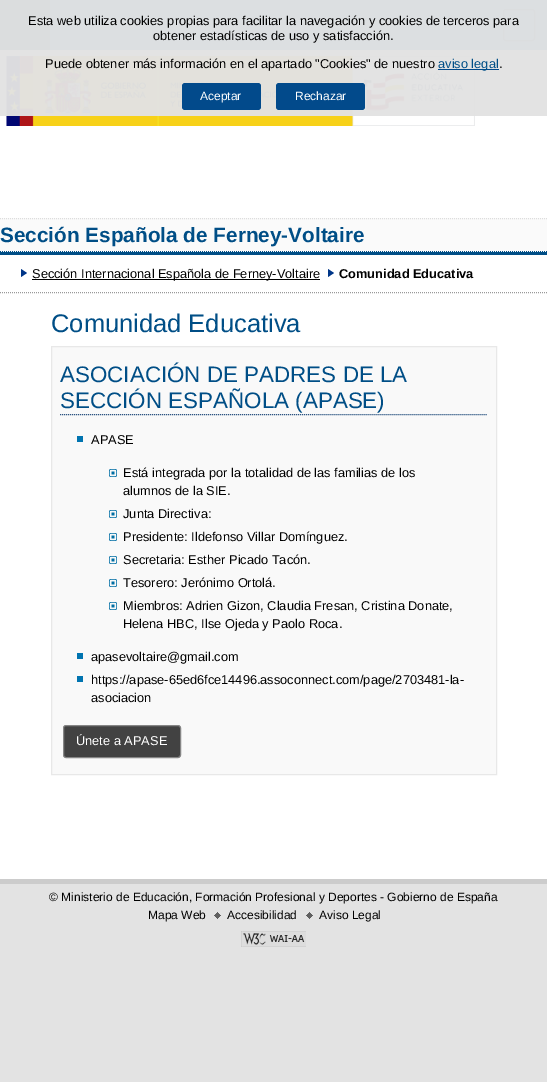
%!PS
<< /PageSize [547 1082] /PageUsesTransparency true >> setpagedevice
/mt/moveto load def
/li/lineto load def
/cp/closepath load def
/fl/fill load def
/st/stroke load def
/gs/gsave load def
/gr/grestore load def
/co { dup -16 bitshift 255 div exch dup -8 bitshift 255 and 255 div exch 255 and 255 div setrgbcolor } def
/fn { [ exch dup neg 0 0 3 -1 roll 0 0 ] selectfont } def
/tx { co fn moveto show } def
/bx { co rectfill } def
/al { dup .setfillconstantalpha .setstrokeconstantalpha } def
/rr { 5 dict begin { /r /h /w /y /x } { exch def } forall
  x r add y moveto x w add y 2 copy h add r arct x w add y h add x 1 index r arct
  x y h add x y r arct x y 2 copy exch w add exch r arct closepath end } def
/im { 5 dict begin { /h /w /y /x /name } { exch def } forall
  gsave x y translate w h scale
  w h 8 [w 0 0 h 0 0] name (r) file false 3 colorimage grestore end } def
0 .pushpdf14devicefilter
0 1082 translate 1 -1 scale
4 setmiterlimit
0 0 547 1082 16#E3E3E3 bx
50 0 497 50 16#277BBA bx
0 0 50 50 16#003F6D bx
503.5 9.5 31 31 2.5 rr st
0 50 547 168 16#FFFFFF bx
(media/1.raw) 6 56 469 70 im
0.97 al
0 0 547 116 16#E2E2E2 bx
1 al
438 69 61 1 16#024A8B bx
182 83 79 27 3 rr fl
276 83 89 27 3 rr fl
0 252 547 3 16#004E86 bx
0 218 547 34 16#FAFAFA bx
16#DDDDDD co
[1 1] 0 setdash
0 218.5 mt 547 218.5 li st
16#004E86 co
0 251.5 mt 547 251.5 li st
0 255 547 624 16#FFFFFF bx
16#999999 co
0 292.5 mt 547 292.5 li st
(media/2.raw) 21 269 6 8 im
32 279 288 1 16#000000 bx
(media/2.raw) 328 269 6 8 im
16#F9F9F9 co
51.5 346.5 mt 496.5 346.5 li 496.5 774.5 li 51.5 774.5 li cp gs fl gr
16#E8E8E8 co
[] 0 setdash
st
16#2D5582 co
[1 1] 0 setdash
60 414.5 mt 488 414.5 li st
77 436 6 6 16#0074B0 bx
(media/3.raw) 109 469 8 8 im
(media/3.raw) 109 510 8 8 im
(media/3.raw) 109 533 8 8 im
(media/3.raw) 109 556 8 8 im
(media/3.raw) 109 579 8 8 im
(media/3.raw) 109 602 8 8 im
77 653 6 6 16#0074B0 bx
77 676 6 6 16#0074B0 bx
16#424242 co
63.5 725.5 117 32 2.5 rr gs fl gr
16#868686 co
[] 0 setdash
st
0 879 547 5 16#CCCCCC bx
(media/4.raw) 214 912 7 7 im
(media/4.raw) 306 912 7 7 im
(media/5.raw) 241 931 65 16 im
(Esta web utiliza cookies propias para facilitar la navegación y cookies de terceros para) 28 25 /LiberationSans-Regular 12.8 16#000000 tx
(obtener estadísticas de uso y satisfacción.) 153 40 /LiberationSans-Regular 12.8 16#000000 tx
(Puede obtener más información en el apartado "Cookies" de nuestro) 45 68 /LiberationSans-Regular 12.8 16#000000 tx
(aviso legal) 438 68 /LiberationSans-Regular 12.8 16#004E86 tx
(.) 499 68 /LiberationSans-Regular 12.8 16#000000 tx
(Aceptar) 200 100 /LiberationSans-Regular 12 16#FFFFFF tx
(Rechazar) 295 100 /LiberationSans-Regular 12 16#FFFFFF tx
(Sección Española de Ferney-Voltaire) 0 242 /LiberationSans-Bold 20.75 16#004E86 tx
(Sección Internacional Española de Ferney-Voltaire) 32 278 /LiberationSans-Regular 12.8 16#000000 tx
(Comunidad Educativa) 339 278 /LiberationSans-Bold 12.8 16#000000 tx
(Comunidad Educativa) 51 332 /LiberationSans-Regular 25.5 16#004E86 tx
(ASOCIACIÓN DE PADRES DE LA) 60 382 /LiberationSans-Regular 22.4 16#004E86 tx
(SECCIÓN ESPAÑOLA \(APASE\)) 60 408 /LiberationSans-Regular 22.4 16#004E86 tx
(APASE) 91 444 /LiberationSans-Regular 12.8 16#000000 tx
(Está integrada por la totalidad de las familias de los) 123 477 /LiberationSans-Regular 12.8 16#000000 tx
(alumnos de la SIE.) 123 495 /LiberationSans-Regular 12.8 16#000000 tx
(Junta Directiva:) 123 518 /LiberationSans-Regular 12.8 16#000000 tx
(Presidente: Ildefonso Villar Domínguez.) 123 541 /LiberationSans-Regular 12.8 16#000000 tx
(Secretaria: Esther Picado Tacón.) 123 564 /LiberationSans-Regular 12.8 16#000000 tx
(Tesorero: Jerónimo Ortolá.) 123 587 /LiberationSans-Regular 12.8 16#000000 tx
(Miembros: Adrien Gizon, Claudia Fresan, Cristina Donate,) 123 610 /LiberationSans-Regular 12.8 16#000000 tx
(Helena HBC, Ilse Ojeda y Paolo Roca.) 123 628 /LiberationSans-Regular 12.8 16#000000 tx
(apasevoltaire@gmail.com) 91 661 /LiberationSans-Regular 12.8 16#000000 tx
(https://apase-65ed6fce14496.assoconnect.com/page/2703481-la-) 91 684 /LiberationSans-Regular 12.8 16#000000 tx
(asociacion) 91 702 /LiberationSans-Regular 12.8 16#000000 tx
(Únete a APASE) 76 745 /LiberationSans-Regular 12.8 16#FFFFFF tx
(© Ministerio de Educación, Formación Profesional y Deportes - Gobierno de España) 49 901 /LiberationSans-Regular 12 16#000000 tx
(Mapa Web) 148 919 /LiberationSans-Regular 12 16#000000 tx
(Accesibilidad) 227 919 /LiberationSans-Regular 12 16#000000 tx
(Aviso Legal) 319 919 /LiberationSans-Regular 12 16#000000 tx
.poppdf14devicefilter showpage
